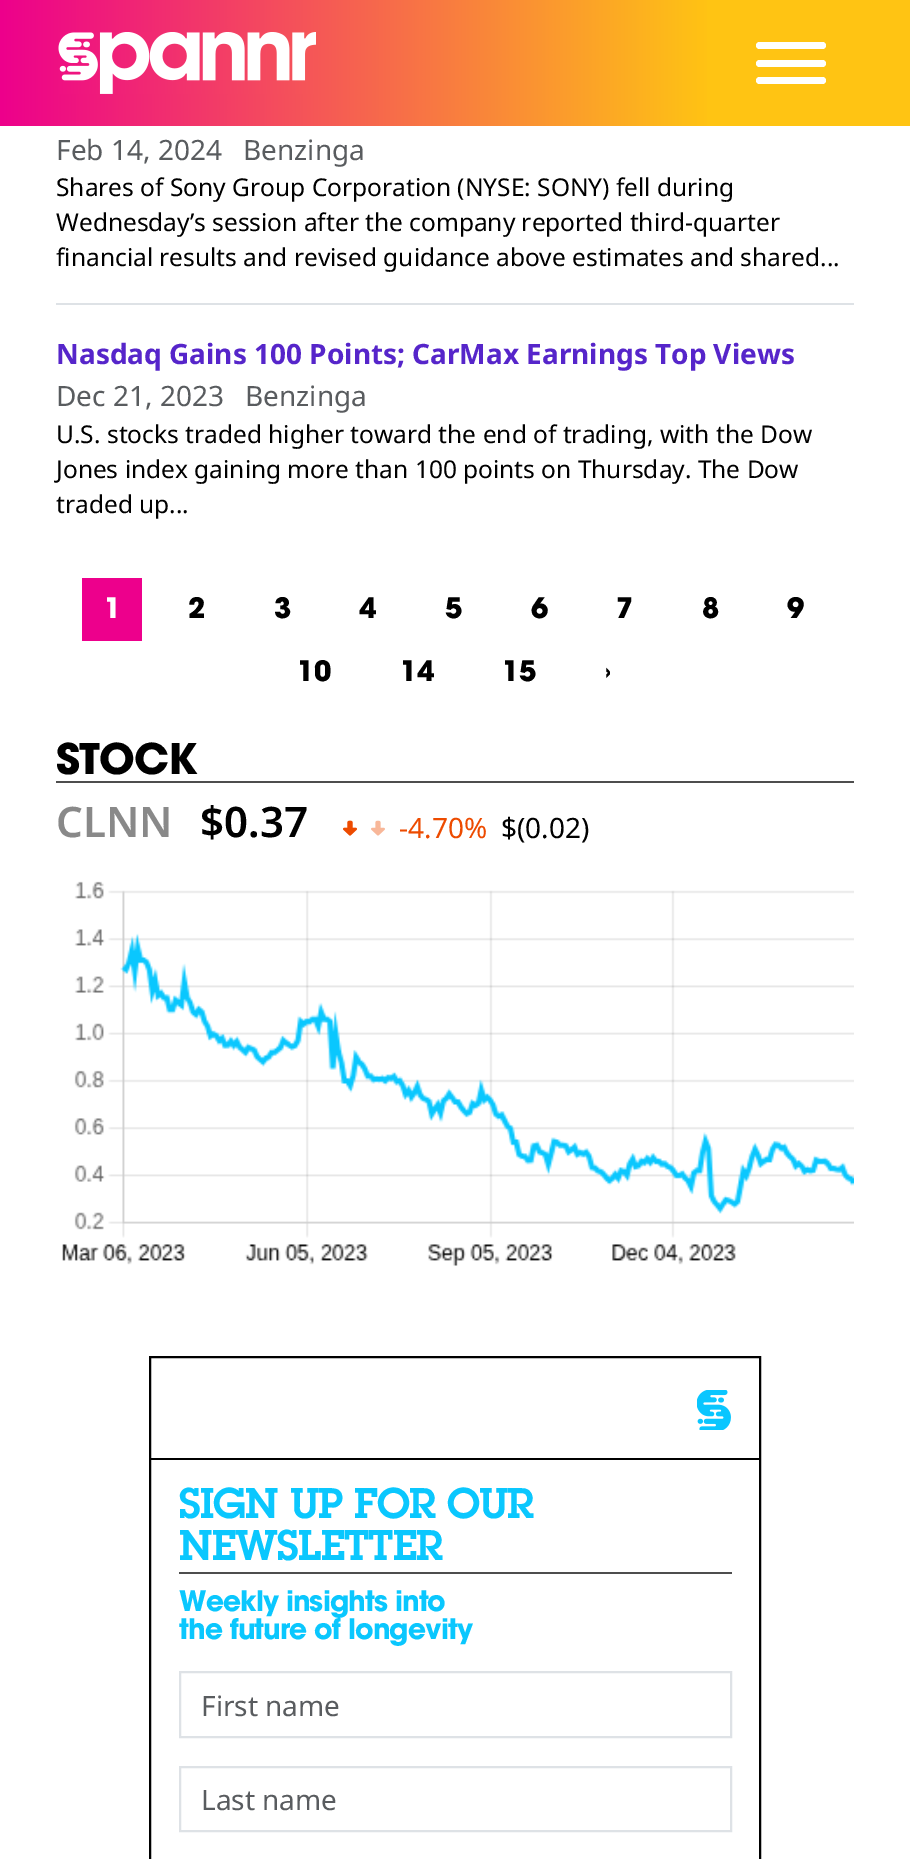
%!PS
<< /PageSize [910 1859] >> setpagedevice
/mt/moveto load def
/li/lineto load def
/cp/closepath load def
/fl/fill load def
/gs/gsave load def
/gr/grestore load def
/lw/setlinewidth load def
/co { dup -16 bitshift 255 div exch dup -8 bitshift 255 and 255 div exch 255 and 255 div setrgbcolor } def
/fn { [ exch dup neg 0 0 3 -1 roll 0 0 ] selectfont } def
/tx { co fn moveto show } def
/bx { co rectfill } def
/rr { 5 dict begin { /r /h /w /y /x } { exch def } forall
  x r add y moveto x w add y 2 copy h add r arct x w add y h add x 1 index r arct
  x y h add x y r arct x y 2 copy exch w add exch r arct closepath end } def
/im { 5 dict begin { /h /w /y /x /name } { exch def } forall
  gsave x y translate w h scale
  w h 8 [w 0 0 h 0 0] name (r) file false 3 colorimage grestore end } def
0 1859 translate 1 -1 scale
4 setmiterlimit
0 0 910 1859 16#FFFFFF bx
gs 0 0 mt 910 0 li 910 126 li 0 126 li cp clip newpath
<< /ShadingType 2 /ColorSpace /DeviceRGB /Coords [910 63 0 63] /Extend [true true] /Function << /FunctionType 3 /Domain [0 1] /Functions [<< /FunctionType 2 /Domain [0 1] /C0 [1 .769 .075] /C1 [1 .769 .075] /N 1 >> << /FunctionType 2 /Domain [0 1] /C0 [1 .769 .075] /C1 [.929 0 .549] /N 1 >>] /Bounds [.22] /Encode [0 1 0 1] >> >> shfill gr
(media/1.raw) 58 32 258 62 im
756 42 70 7 3.5 rr fl
756 60 70 7 3.5 rr fl
756 77 70 7 3.5 rr fl
56 303 798 2 16#DEE2E6 bx
82 578 60 63 16#ED008C bx
56 781 798 2 16#4E4E4E bx
(media/2.raw) 343 820 14 16 im
(media/3.raw) 343 820 42 16 im
(media/4.raw) 62 881 792 385 im
16#000000 co
2 lw
150 1357 610 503 rectstroke
151 1458 609 2 16#000000 bx
(media/5.raw) 697 1390 34 40 im
179 1572 553 2 16#4E4E4E bx
16#DEE2E6 co
180 1672 551 65 rectstroke
180 1767 551 64 rectstroke
(Feb 14, 2024) 56 160 /NotoSans-Regular 28 16#595C5F tx
(Benzinga) 243 160 /NotoSans-Regular 28 16#595C5F tx
(Shares of Sony Group Corporation \(NYSE: SONY\) fell during) 56 196 /NotoSans-Regular 24.5 16#000000 tx
(Wednesday’s session after the company reported third-quarter) 56 231 /NotoSans-Regular 24.5 16#000000 tx
(financial results and revised guidance above estimates and shared...) 56 266 /NotoSans-Regular 24.5 16#000000 tx
(Nasdaq Gains 100 Points; CarMax Earnings Top Views) 56 364 /NotoSans-Bold 28 16#5625CA tx
(Dec 21, 2023) 56 406 /NotoSans-Regular 28 16#595C5F tx
(Benzinga) 245 406 /NotoSans-Regular 28 16#595C5F tx
(U.S. stocks traded higher toward the end of trading, with the Dow) 56 443 /NotoSans-Regular 24.5 16#000000 tx
(Jones index gaining more than 100 points on Thursday. The Dow) 56 478 /NotoSans-Regular 24.5 16#000000 tx
(traded up...) 56 513 /NotoSans-Regular 24.5 16#000000 tx
/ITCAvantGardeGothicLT-Bold 28 fn
16#FFFFFF co
104 618 mt -.9 0 (1) ashow
(2) 188 618 /ITCAvantGardeGothicLT-Bold 28 16#000000 tx
(3) 274 618 /ITCAvantGardeGothicLT-Bold 28 16#000000 tx
(4) 359 618 /ITCAvantGardeGothicLT-Bold 28 16#000000 tx
(5) 445 618 /ITCAvantGardeGothicLT-Bold 28 16#000000 tx
(6) 531 618 /ITCAvantGardeGothicLT-Bold 28 16#000000 tx
(7) 616 618 /ITCAvantGardeGothicLT-Bold 28 16#000000 tx
(8) 702 618 /ITCAvantGardeGothicLT-Bold 28 16#000000 tx
(9) 787 618 /ITCAvantGardeGothicLT-Bold 28 16#000000 tx
(10) 297 681 /ITCAvantGardeGothicLT-Bold 28 16#000000 tx
(14) 400 681 /ITCAvantGardeGothicLT-Bold 28 16#000000 tx
(15) 502 681 /ITCAvantGardeGothicLT-Bold 28 16#000000 tx
(›) 605 681 /ITCAvantGardeGothicLT-Bold 28 16#000000 tx
/ITCAvantGardeGothicLT-Bold 42 fn
56 774 mt -.9 0 (STOCK) ashow
(CLNN) 56 837 /NotoSans-SemiBold 42 16#898989 tx
($0.37) 200 837 /NotoSans-SemiBold 42 16#000000 tx
(-4.70%) 399 838 /NotoSans-Regular 28 16#ED4B00 tx
($\(0.02\)) 501 838 /NotoSans-Regular 28 16#000000 tx
/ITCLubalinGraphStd-SemiBold 42 fn
16#0AC7FE co
179 1518 mt -.9 0 (SIGN UP FOR OUR) ashow
179 1560 mt -.9 0 (NEWSLETTER) ashow
/ITCAvantGardeGothicLT-Bold 28 fn
179 1611 mt -.9 0 (Weekly insights into) ashow
179 1639 mt -.9 0 (the future of longevity) ashow
(First name) 201 1716 /NotoSans-Regular 28 16#595C5F tx
(Last name) 201 1810 /NotoSans-Regular 28 16#595C5F tx
showpage
